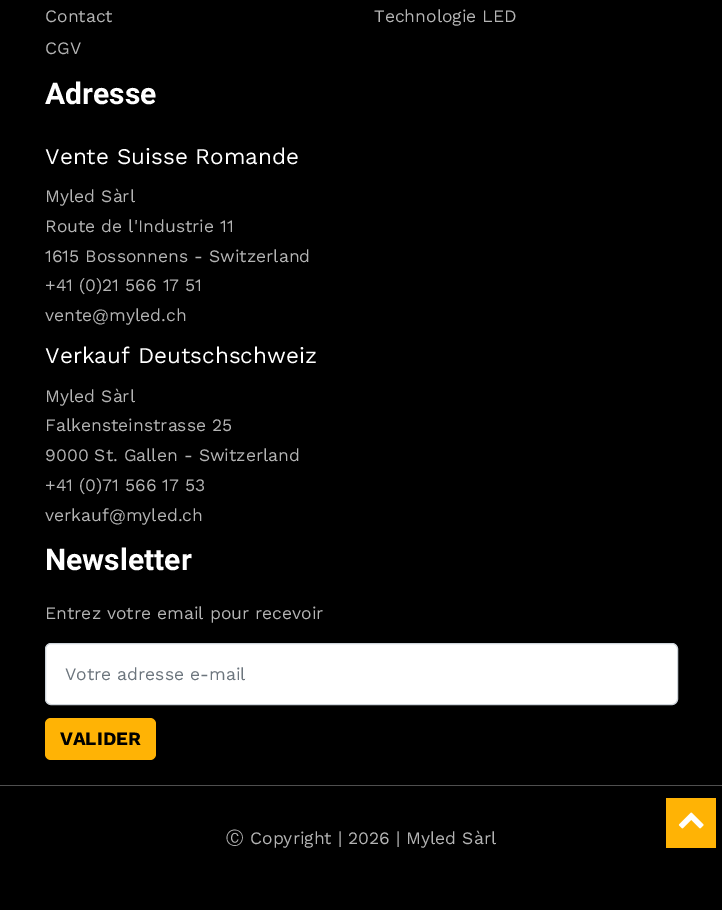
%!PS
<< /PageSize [722 910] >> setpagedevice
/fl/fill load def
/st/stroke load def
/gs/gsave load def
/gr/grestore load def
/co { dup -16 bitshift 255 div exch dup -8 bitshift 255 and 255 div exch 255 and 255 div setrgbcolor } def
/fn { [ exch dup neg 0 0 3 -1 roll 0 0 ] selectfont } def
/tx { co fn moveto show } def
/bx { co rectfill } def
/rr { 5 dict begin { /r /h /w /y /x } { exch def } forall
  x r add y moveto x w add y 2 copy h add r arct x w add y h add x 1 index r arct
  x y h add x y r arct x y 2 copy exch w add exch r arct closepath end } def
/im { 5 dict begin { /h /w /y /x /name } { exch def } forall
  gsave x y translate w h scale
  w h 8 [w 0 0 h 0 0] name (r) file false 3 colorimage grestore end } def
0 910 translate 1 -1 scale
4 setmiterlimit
0 0 722 910 16#000000 bx
0 785 722 1 16#4F4F4F bx
16#FFFFFF co
45.5 643.5 632 61 5.5 rr gs fl gr
16#CED4DA co
st
16#FFB305 co
45 718 111 42 6 rr fl
666 798 50 50 16#FFB305 bx
(media/1.raw) 678 812 26 17 im
(Contact) 45 22 /WorkSans-Regular 17.5 16#B4B4B4 tx
(CGV) 45 54 /WorkSans-Regular 17.5 16#B4B4B4 tx
(Technologie LED) 374 22 /WorkSans-Regular 17.5 16#B4B4B4 tx
(Adresse) 45 104 /Roboto-Bold 30 16#FFFFFF tx
(Vente Suisse Romande) 45 164 /WorkSans-Regular 22.5 16#FFFFFF tx
(Myled Sàrl) 45 202 /WorkSans-Regular 17.5 16#B4B4B4 tx
(Route de l'Industrie 11) 45 232 /WorkSans-Regular 17.5 16#B4B4B4 tx
(1615 Bossonnens - Switzerland) 45 262 /WorkSans-Regular 17.5 16#B4B4B4 tx
(+41 \(0\)21 566 17 51) 45 291 /WorkSans-Regular 17.5 16#B4B4B4 tx
(vente@myled.ch) 45 321 /WorkSans-Regular 17.5 16#B4B4B4 tx
(Verkauf Deutschschweiz) 45 363 /WorkSans-Regular 22.5 16#FFFFFF tx
(Myled Sàrl) 45 402 /WorkSans-Regular 17.5 16#B4B4B4 tx
(Falkensteinstrasse 25) 45 431 /WorkSans-Regular 17.5 16#B4B4B4 tx
(9000 St. Gallen - Switzerland) 45 461 /WorkSans-Regular 17.5 16#B4B4B4 tx
(+41 \(0\)71 566 17 53) 45 491 /WorkSans-Regular 17.5 16#B4B4B4 tx
(verkauf@myled.ch) 45 521 /WorkSans-Regular 17.5 16#B4B4B4 tx
(Newsletter) 45 570 /Roboto-Bold 30 16#FFFFFF tx
(Entrez votre email pour recevoir) 45 619 /WorkSans-Regular 17.5 16#B4B4B4 tx
(Votre adresse e-mail) 65 680 /WorkSans-Regular 17.5 16#6C757D tx
(VALIDER) 60 745 /WorkSans-Bold 18.75 16#000000 tx
(Ⓒ) 226 844 /WenQuanYiZenHei-Medium 17.5 16#B4B4B4 tx
(Copyright | 2026 | Myled Sàrl) 250 844 /WorkSans-Regular 17.5 16#B4B4B4 tx
showpage
